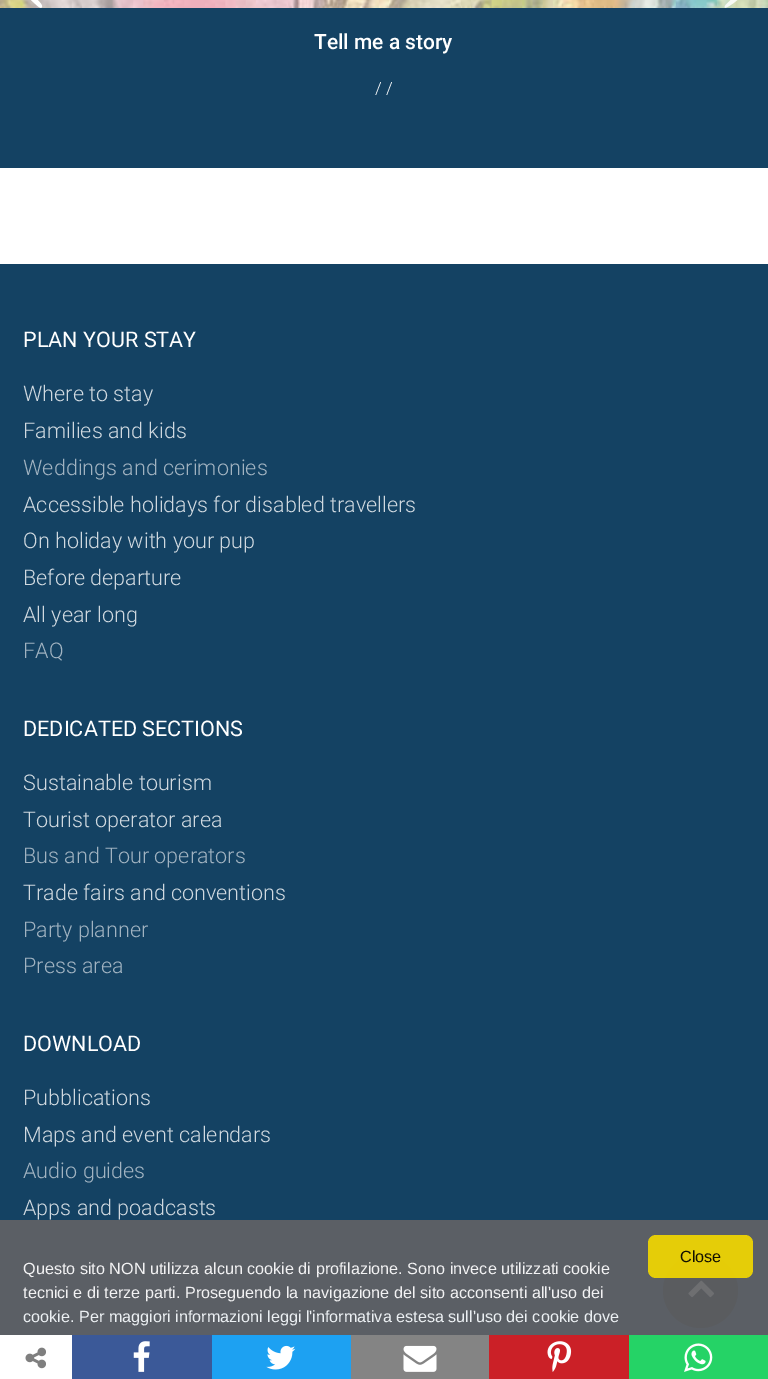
%!PS
<< /PageSize [768 1379] /PageUsesTransparency true >> setpagedevice
/fl/fill load def
/co { dup -16 bitshift 255 div exch dup -8 bitshift 255 and 255 div exch 255 and 255 div setrgbcolor } def
/fn { [ exch dup neg 0 0 3 -1 roll 0 0 ] selectfont } def
/tx { co fn moveto show } def
/bx { co rectfill } def
/al { dup .setfillconstantalpha .setstrokeconstantalpha } def
/ci { newpath 0 360 arc closepath } def
/rr { 5 dict begin { /r /h /w /y /x } { exch def } forall
  x r add y moveto x w add y 2 copy h add r arct x w add y h add x 1 index r arct
  x y h add x y r arct x y 2 copy exch w add exch r arct closepath end } def
/im { 5 dict begin { /h /w /y /x /name } { exch def } forall
  gsave x y translate w h scale
  w h 8 [w 0 0 h 0 0] name (r) file false 3 colorimage grestore end } def
0 .pushpdf14devicefilter
0 1379 translate 1 -1 scale
4 setmiterlimit
0 0 768 1379 16#FFFFFF bx
0 8 768 160 16#144263 bx
0 0 768 8 16#F4F4F4 bx
(media/3.raw) 0 0 768 8 im
(media/1.raw) 31 0 12 8 im
(media/2.raw) 724 0 14 8 im
0 264 768 956 16#144263 bx
0 1220 768 115 16#5B5F65 bx
16#5A5C5F co
700.5 1290.5 37.5 ci fl
(media/4.raw) 688 1280 27 18 im
0.92 al
16#F1D600 co
648 1235 105 43 8 rr fl
1 al
(media/5.raw) 25 1347 21 22 im
72 1335 140 44 16#3B5998 bx
(media/6.raw) 133 1341 17 31 im
212 1335 139 44 16#1DA1F2 bx
(media/7.raw) 266 1345 30 25 im
351 1335 138 44 16#848484 bx
(media/8.raw) 403 1345 34 27 im
489 1335 140 44 16#CB2027 bx
(media/9.raw) 547 1341 25 31 im
629 1335 139 44 16#25D366 bx
(media/10.raw) 684 1343 29 29 im
(Tell me a story) 314 49 /Roboto-Medium 21 16#FFFFFF tx
(/ /) 375 94 /Roboto-Light 17 16#FFFFFF tx
(PLAN YOUR STAY) 23 347 /Roboto-Regular 21.6 16#FFFFFF tx
(Where to stay) 23 401 /Roboto-Light 21.6 16#D0D9E0 tx
(Families and kids) 23 438 /Roboto-Light 21.6 16#D0D9E0 tx
(Weddings and cerimonies) 23 475 /Roboto-Light 21.6 16#A1B3C1 tx
(Accessible holidays for disabled travellers) 23 512 /Roboto-Light 21.6 16#D0D9E0 tx
(On holiday with your pup) 23 548 /Roboto-Light 21.6 16#D0D9E0 tx
(Before departure) 23 585 /Roboto-Light 21.6 16#D0D9E0 tx
(All year long) 23 622 /Roboto-Light 21.6 16#D0D9E0 tx
(FAQ) 23 658 /Roboto-Light 21.6 16#A1B3C1 tx
(DEDICATED SECTIONS) 23 736 /Roboto-Regular 21.6 16#FFFFFF tx
(Sustainable tourism) 23 790 /Roboto-Light 21.6 16#D0D9E0 tx
(Tourist operator area) 23 827 /Roboto-Light 21.6 16#D0D9E0 tx
(Bus and Tour operators) 23 863 /Roboto-Light 21.6 16#A1B3C1 tx
(Trade fairs and conventions) 23 900 /Roboto-Light 21.6 16#D0D9E0 tx
(Party planner) 23 937 /Roboto-Light 21.6 16#A1B3C1 tx
(Press area) 23 973 /Roboto-Light 21.6 16#A1B3C1 tx
(DOWNLOAD) 23 1051 /Roboto-Regular 21.6 16#FFFFFF tx
(Pubblications) 23 1105 /Roboto-Light 21.6 16#D0D9E0 tx
(Maps and event calendars) 23 1142 /Roboto-Light 21.6 16#D0D9E0 tx
(Audio guides) 23 1178 /Roboto-Light 21.6 16#A1B3C1 tx
(Apps and poadcasts) 23 1215 /Roboto-Light 21.6 16#D0D9E0 tx
(Close) 680 1262 /LiberationSans-Regular 16.2 16#121001 tx
(Questo sito NON utilizza alcun cookie di profilazione. Sono invece utilizzati cookie) 23 1274 /LiberationSans-Regular 16.2 16#F2F2F3 tx
(tecnici e di terze parti. Proseguendo la navigazione del sito acconsenti all'uso dei) 23 1298 /LiberationSans-Regular 16.2 16#F2F2F3 tx
(cookie. Per maggiori informazioni leggi l'informativa estesa sull'uso dei cookie dove) 23 1322 /LiberationSans-Regular 16.2 16#ECF0F3 tx
.poppdf14devicefilter showpage
